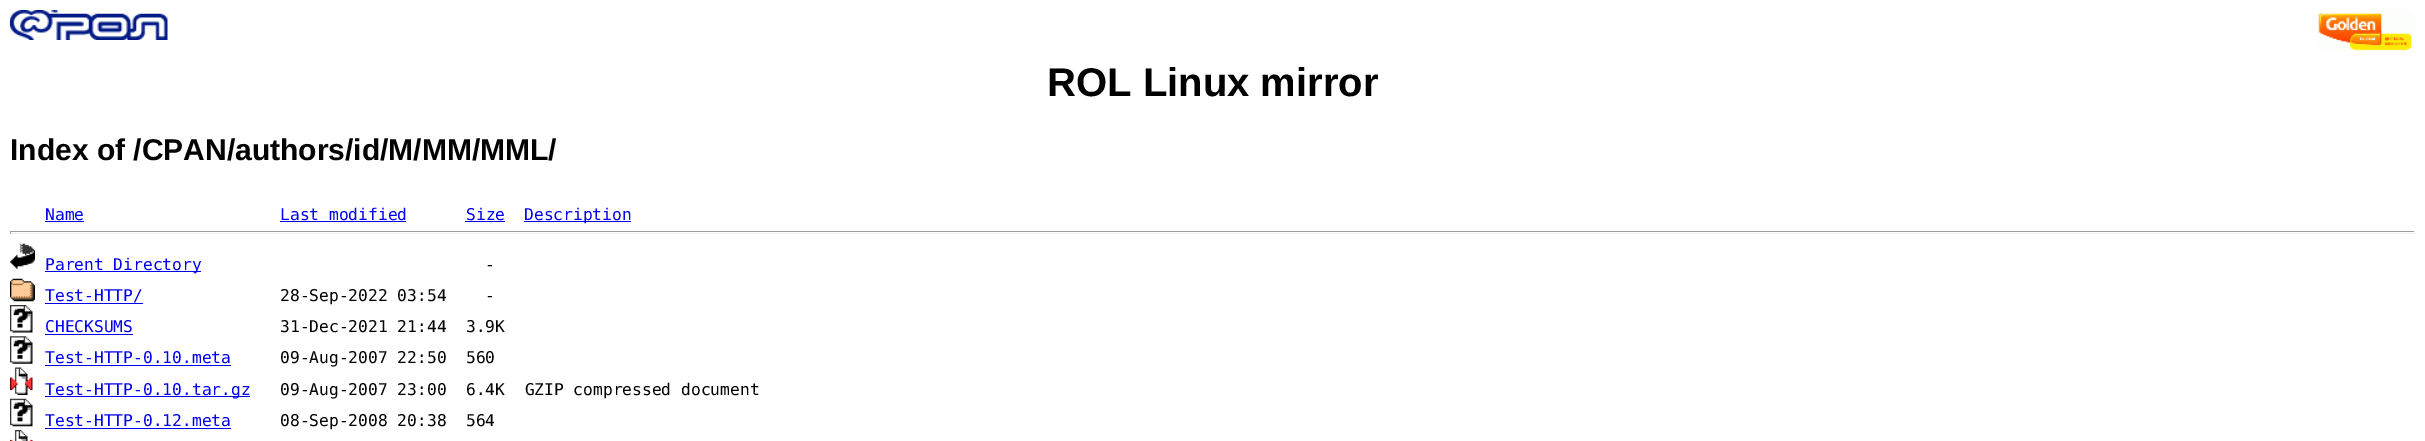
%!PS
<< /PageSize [2425 441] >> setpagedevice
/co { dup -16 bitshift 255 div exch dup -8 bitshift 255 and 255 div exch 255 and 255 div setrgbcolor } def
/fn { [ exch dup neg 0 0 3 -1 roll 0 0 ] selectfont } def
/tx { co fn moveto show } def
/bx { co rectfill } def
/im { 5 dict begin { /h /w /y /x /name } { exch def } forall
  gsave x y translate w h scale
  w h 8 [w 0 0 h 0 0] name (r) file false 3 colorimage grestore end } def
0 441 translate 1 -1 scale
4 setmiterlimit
0 0 2425 441 16#FFFFFF bx
(media/1.raw) 10 10 158 30 im
(media/2.raw) 2318 12 94 39 im
45 221 39 1 16#0000EE bx
280 221 126 1 16#0000EE bx
465 221 40 1 16#0000EE bx
524 221 107 1 16#0000EE bx
10 231 2405 1 16#9F9F9F bx
2414 231 1 3 16#EEEEEE bx
10 233 2405 1 16#EEEEEE bx
10 231 1 3 16#9F9F9F bx
(media/3.raw) 10 243 25 26 im
45 271 156 1 16#0000EE bx
(media/4.raw) 10 278 25 24 im
45 303 98 1 16#0000EE bx
(media/5.raw) 10 305 23 28 im
45 334 88 1 16#0000EE bx
(media/6.raw) 10 336 23 28 im
45 365 186 1 16#0000EE bx
(media/7.raw) 10 367 23 28 im
45 396 205 1 16#0000EE bx
(media/8.raw) 10 398 23 29 im
45 428 186 1 16#0000EE bx
(media/9.raw) 10 430 23 11 im
(ROL Linux mirror) 1047 96 /LiberationSans-Bold 40 16#000000 tx
(Index of /CPAN/authors/id/M/MM/MML/) 10 160 /LiberationSans-Bold 30 16#000000 tx
(Name) 45 220 /DejaVuSansMono-Regular 16.25 16#0000EE tx
(Last modified) 280 220 /DejaVuSansMono-Regular 16.25 16#0000EE tx
(Size) 466 220 /DejaVuSansMono-Regular 16.25 16#0000EE tx
(Description) 524 220 /DejaVuSansMono-Regular 16.25 16#0000EE tx
(Parent Directory) 45 270 /DejaVuSansMono-Regular 16.25 16#0000EE tx
(-) 485 270 /DejaVuSansMono-Regular 16.25 16#000000 tx
(Test-HTTP/) 45 301 /DejaVuSansMono-Regular 16.25 16#0000EE tx
(28-Sep-2022 03:54    -) 280 301 /DejaVuSansMono-Regular 16.25 16#000000 tx
(CHECKSUMS) 45 332 /DejaVuSansMono-Regular 16.25 16#0000EE tx
(31-Dec-2021 21:44  3.9K) 280 332 /DejaVuSansMono-Regular 16.25 16#000000 tx
(Test-HTTP-0.10.meta) 45 363 /DejaVuSansMono-Regular 16.25 16#0000EE tx
(09-Aug-2007 22:50  560) 280 363 /DejaVuSansMono-Regular 16.25 16#000000 tx
(Test-HTTP-0.10.tar.gz) 45 395 /DejaVuSansMono-Regular 16.25 16#0000EE tx
(09-Aug-2007 23:00  6.4K  GZIP compressed document) 280 395 /DejaVuSansMono-Regular 16.25 16#000000 tx
(Test-HTTP-0.12.meta) 45 426 /DejaVuSansMono-Regular 16.25 16#0000EE tx
(08-Sep-2008 20:38  564) 280 426 /DejaVuSansMono-Regular 16.25 16#000000 tx
showpage
